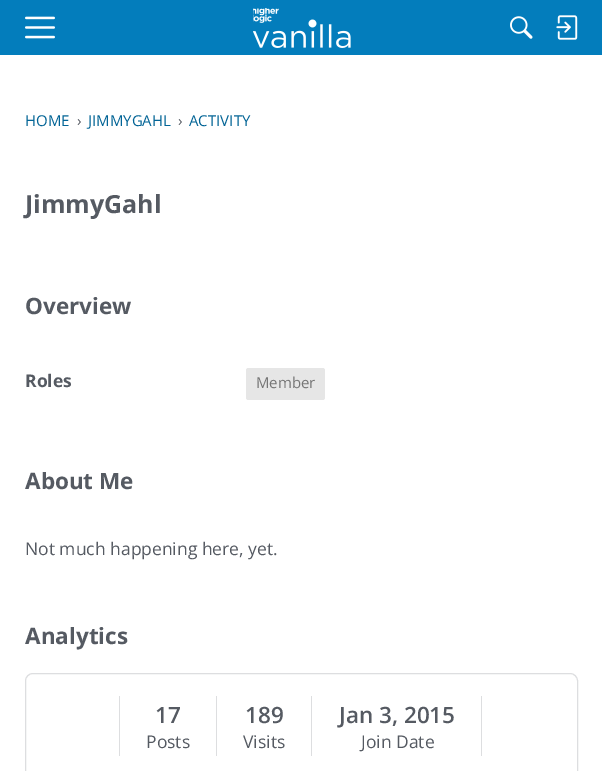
%!PS
<< /PageSize [602 771] >> setpagedevice
/fl/fill load def
/st/stroke load def
/co { dup -16 bitshift 255 div exch dup -8 bitshift 255 and 255 div exch 255 and 255 div setrgbcolor } def
/fn { [ exch dup neg 0 0 3 -1 roll 0 0 ] selectfont } def
/tx { co fn moveto show } def
/bx { co rectfill } def
/rr { 5 dict begin { /r /h /w /y /x } { exch def } forall
  x r add y moveto x w add y 2 copy h add r arct x w add y h add x 1 index r arct
  x y h add x y r arct x y 2 copy exch w add exch r arct closepath end } def
/im { 5 dict begin { /h /w /y /x /name } { exch def } forall
  gsave x y translate w h scale
  w h 8 [w 0 0 h 0 0] name (r) file false 3 colorimage grestore end } def
0 771 translate 1 -1 scale
4 setmiterlimit
0 0 602 771 16#FFFFFF bx
0 0 602 55 16#037DBC bx
(media/1.raw) 25 16 30 23 im
(media/2.raw) 253 8 98 40 im
(media/3.raw) 510 16 23 23 im
(media/4.raw) 556 15 22 25 im
16#E6E6E6 co
246 368 79 32 2.5 rr fl
16#DDDEE0 co
25.5 673.5 552 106 7.5 rr st
216 696 1 60 16#DDDEE0 bx
119 696 1 60 16#DDDEE0 bx
311 696 1 60 16#DDDEE0 bx
481 696 1 60 16#DDDEE0 bx
(HOME) 25 126 /OpenSans-Regular 15 16#026496 tx
(›) 77 126 /OpenSans-Regular 15 16#555A62 tx
(JIMMYGAHL) 88 126 /OpenSans-Regular 15 16#026496 tx
(›) 178 126 /OpenSans-Regular 15 16#555A62 tx
(ACTIVITY) 189 126 /OpenSans-Regular 15 16#026496 tx
(JimmyGahl) 25 213 /OpenSans-Bold 25 16#555A62 tx
(Overview) 25 314 /OpenSans-Bold 22.5 16#555A62 tx
(Roles) 25 387 /OpenSans-Bold 17.5 16#555A62 tx
(Member) 256 388 /OpenSans-Regular 15 16#767676 tx
(About Me) 25 489 /OpenSans-Bold 22.5 16#555A62 tx
(Not much happening here, yet.) 25 555 /OpenSans-Regular 17.5 16#555A62 tx
(Analytics) 25 644 /OpenSans-Bold 22.5 16#555A62 tx
(17) 155 723 /OpenSans-SemiBold 22.5 16#555A62 tx
(Posts) 146 748 /OpenSans-Regular 17.5 16#555A62 tx
(189) 245 723 /OpenSans-SemiBold 22.5 16#555A62 tx
(Visits) 243 748 /OpenSans-Regular 17.5 16#555A62 tx
(Jan 3, 2015) 339 723 /OpenSans-SemiBold 22.5 16#555A62 tx
(Join Date) 361 748 /OpenSans-Regular 17.5 16#555A62 tx
showpage
